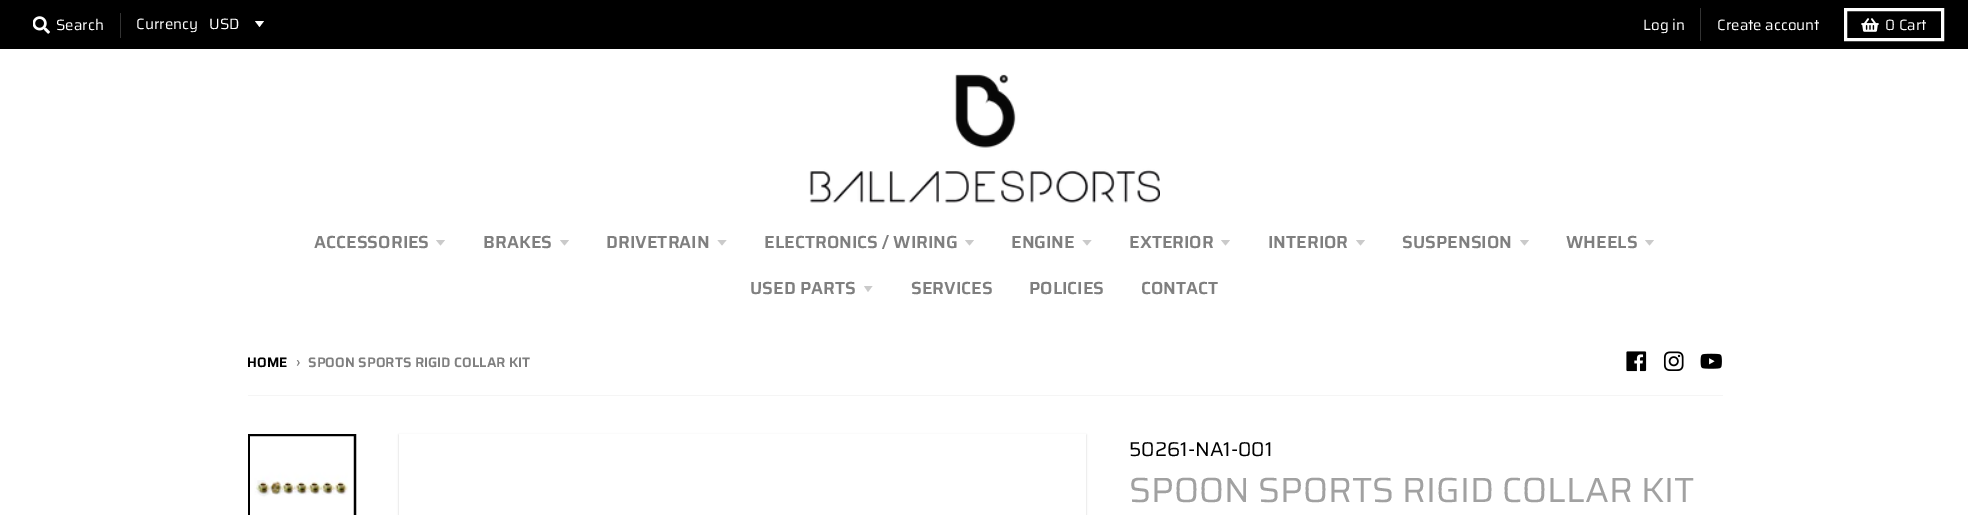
%!PS
<< /PageSize [1968 515] /PageUsesTransparency true >> setpagedevice
/mt/moveto load def
/li/lineto load def
/cp/closepath load def
/fl/fill load def
/gs/gsave load def
/gr/grestore load def
/lw/setlinewidth load def
/co { dup -16 bitshift 255 div exch dup -8 bitshift 255 and 255 div exch 255 and 255 div setrgbcolor } def
/fn { [ exch dup neg 0 0 3 -1 roll 0 0 ] selectfont } def
/tx { co fn moveto show } def
/bx { co rectfill } def
/al { dup .setfillconstantalpha .setstrokeconstantalpha } def
/rr { 5 dict begin { /r /h /w /y /x } { exch def } forall
  x r add y moveto x w add y 2 copy h add r arct x w add y h add x 1 index r arct
  x y h add x y r arct x y 2 copy exch w add exch r arct closepath end } def
/sh { 12 dict begin { /a /b /q /h /w /y /x } { exch def } forall gsave /was 0 def
  9 -2 -9 { dup b mul 4 div /e exch def 1 sub .425 mul 2.718 exch exp 1 add a .99 .min exch div /now exch def
    1 1 now sub 1 was sub div sub al /was now def
    w h .min e 2 mul add 0 gt { x e sub y e sub w e 2 mul add h e 2 mul add
      q e add b .6 mul add w h .min 2 div e add .min 0 .max rr fill } if } for grestore end } def
/im { 5 dict begin { /h /w /y /x /name } { exch def } forall
  gsave x y translate w h scale
  w h 8 [w 0 0 h 0 0] name (r) file false 3 colorimage grestore end } def
0 .pushpdf14devicefilter
0 515 translate 1 -1 scale
4 setmiterlimit
0 0 1968 515 16#FFFFFF bx
0 0 1968 49 16#000000 bx
(media/1.raw) 33 16 17 18 im
120 13 1 25 16#333333 bx
16#FFFFFF co
255 21 mt 259.5 27 li 264 21 li cp fl
1700 8 1 33 16#333333 bx
16#FFFFFF co
3 lw
1845.5 9.5 97 30 rectstroke
(media/2.raw) 1861 18 18 14 im
(media/3.raw) 809 74 351 129 im
16#CACACA co
436 240 mt 440.5 245.5 li 445 240 li cp fl
560 240 mt 564.5 245.5 li 569 240 li cp fl
717.5 240 mt 722 245.5 li 726.5 240 li cp fl
965 240 mt 969.5 245.5 li 974 240 li cp fl
1082.5 240 mt 1087 245.5 li 1091.5 240 li cp fl
1221 240 mt 1225.5 245.5 li 1230 240 li cp fl
1356 240 mt 1360.5 245.5 li 1365 240 li cp fl
1520 240 mt 1524.5 245.5 li 1529 240 li cp fl
1645 240 mt 1649.5 245.5 li 1654 240 li cp fl
864 286 mt 868 292 li 872.5 286 li cp fl
(media/4.raw) 1626 351 21 21 im
(media/5.raw) 1663 351 21 20 im
(media/6.raw) 1700 353 22 16 im
248 395 1475 1 16#F5F5F5 bx
16#000000 co
249.5 435.5 105 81 rectstroke
(media/7.raw) 250 436 104 79 im
gs
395 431 mt 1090 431 li 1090 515 li 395 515 li cp 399 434 mt 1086 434 li 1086 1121 li 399 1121 li cp eoclip newpath
399 435 687 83 0 1 .2 sh
gr
(Search) 56 30 /Saira-Regular 15 16#FFFFFF tx
(Currency) 136 29 /Saira-Regular 15 16#FFFFFF tx
(USD) 209 29 /Saira-Regular 15 16#FFFFFF tx
(Log in) 1643 30 /Saira-Regular 15 16#FFFFFF tx
(Create account) 1717 30 /Saira-Regular 15 16#FFFFFF tx
(0 Cart) 1885 30 /Saira-Regular 15 16#FFFFFF tx
(ACCESSORIES) 314 248 /Saira-SemiBold 17.5 16#7F7F7F tx
(BRAKES) 483 248 /Saira-SemiBold 17.5 16#7F7F7F tx
(DRIVETRAIN) 606 248 /Saira-SemiBold 17.5 16#7F7F7F tx
(ELECTRONICS / WIRING) 764 248 /Saira-SemiBold 17.5 16#7F7F7F tx
(ENGINE) 1011 248 /Saira-SemiBold 17.5 16#7F7F7F tx
(EXTERIOR) 1129 248 /Saira-SemiBold 17.5 16#7F7F7F tx
(INTERIOR) 1268 248 /Saira-SemiBold 17.5 16#7F7F7F tx
(SUSPENSION) 1402 248 /Saira-SemiBold 17.5 16#7F7F7F tx
(WHEELS) 1566 248 /Saira-SemiBold 17.5 16#7F7F7F tx
(USED PARTS) 750 294 /Saira-SemiBold 17.5 16#7F7F7F tx
(SERVICES) 911 294 /Saira-SemiBold 17.5 16#7F7F7F tx
(POLICIES) 1029 294 /Saira-SemiBold 17.5 16#7F7F7F tx
(CONTACT) 1141 294 /Saira-SemiBold 17.5 16#7F7F7F tx
(HOME) 247 367 /Saira-SemiBold 13.75 16#000000 tx
(›) 296 367 /Saira-SemiBold 13.75 16#7F7F7F tx
(SPOON SPORTS RIGID COLLAR KIT) 308 367 /Saira-SemiBold 13.75 16#7F7F7F tx
(50261-NA1-001) 1129 456 /Saira-Regular 20 16#000000 tx
(SPOON SPORTS RIGID COLLAR KIT) 1129 502 /Saira-Regular 35 16#A1A1A1 tx
.poppdf14devicefilter showpage
